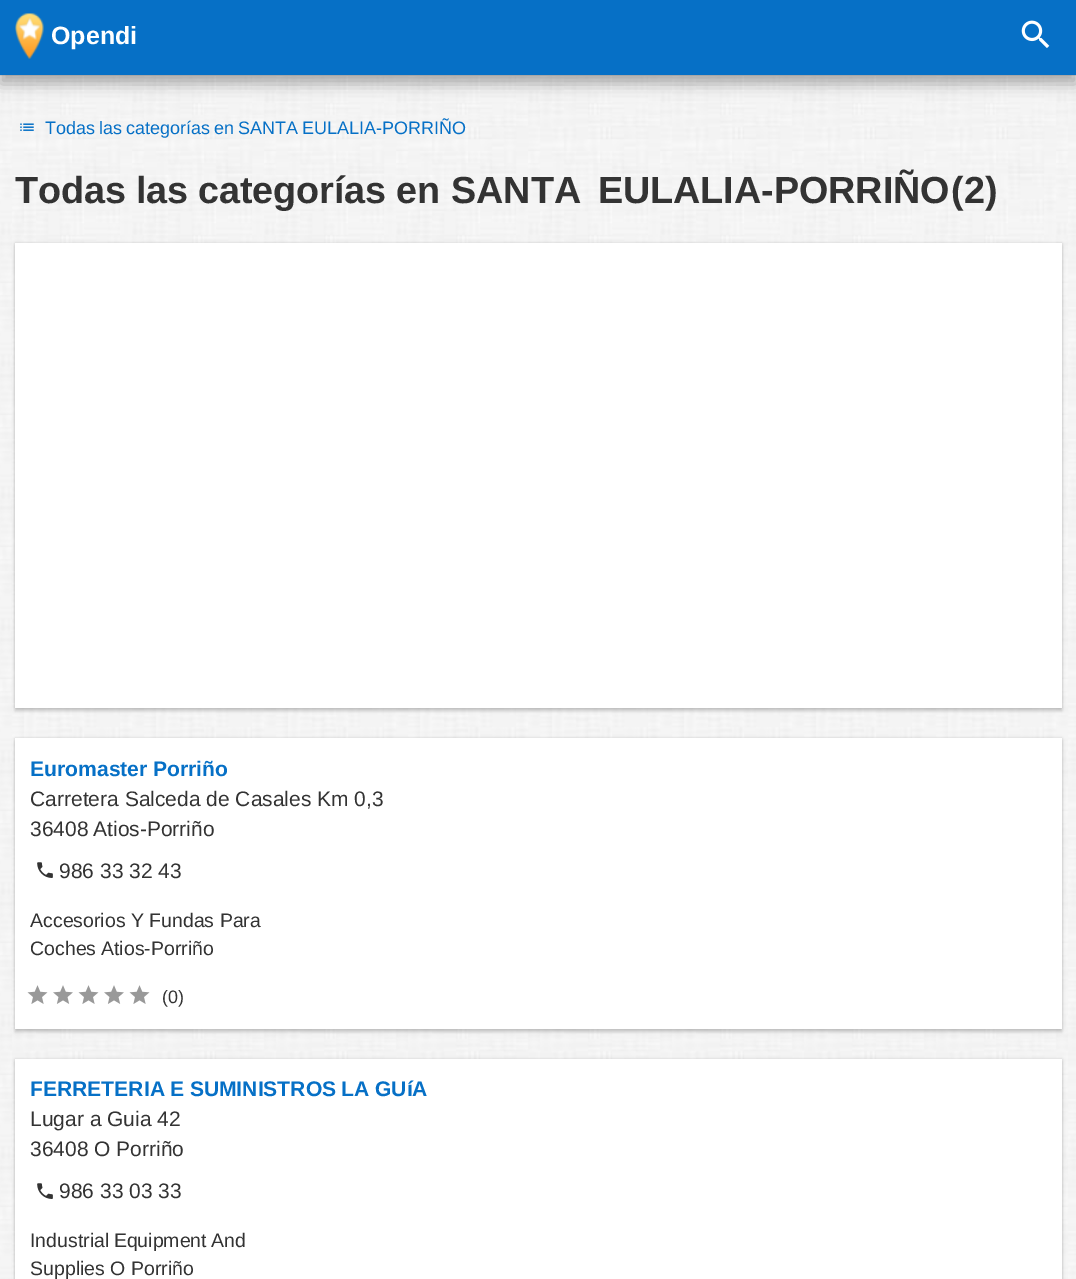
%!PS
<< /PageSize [1076 1279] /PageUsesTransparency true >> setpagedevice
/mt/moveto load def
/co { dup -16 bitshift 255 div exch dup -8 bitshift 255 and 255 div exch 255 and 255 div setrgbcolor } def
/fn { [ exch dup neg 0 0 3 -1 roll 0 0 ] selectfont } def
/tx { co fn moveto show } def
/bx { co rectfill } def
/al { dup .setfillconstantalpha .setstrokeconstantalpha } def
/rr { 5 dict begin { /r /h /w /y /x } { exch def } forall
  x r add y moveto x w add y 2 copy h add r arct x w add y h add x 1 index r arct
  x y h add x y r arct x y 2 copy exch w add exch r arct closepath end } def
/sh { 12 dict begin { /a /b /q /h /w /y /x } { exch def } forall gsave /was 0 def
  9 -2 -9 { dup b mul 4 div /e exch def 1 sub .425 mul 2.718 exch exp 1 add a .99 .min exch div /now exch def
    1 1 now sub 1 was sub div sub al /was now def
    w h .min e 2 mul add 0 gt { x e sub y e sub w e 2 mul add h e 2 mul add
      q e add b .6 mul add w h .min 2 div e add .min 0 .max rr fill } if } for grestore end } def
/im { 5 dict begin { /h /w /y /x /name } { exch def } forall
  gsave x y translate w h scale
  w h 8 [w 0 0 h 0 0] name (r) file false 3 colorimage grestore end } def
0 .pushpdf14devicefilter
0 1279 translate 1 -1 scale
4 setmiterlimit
0 0 1076 1279 16#FFFFFF bx
(media/1.raw) 0 76 1076 1203 im
0 75 1076 1 16#E0E0E0 bx
16#000000 co
0 9 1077 75 0 7.5 .3 sh
0 0 1076 75 16#0670C6 bx
(media/2.raw) 15 13 29 46 im
(media/3.raw) 1021 20 29 28 im
(media/4.raw) 20 123 14 8 im
16#000000 co
15 243 1047 465 0 1.5 .12 sh
15 246 1047 465 0 1.5 .16 sh
15 243 1047 465 16#FFFFFF bx
16#000000 co
15 738 1047 291 0 1.5 .12 sh
15 741 1047 291 0 1.5 .16 sh
15 738 1047 291 16#FFFFFF bx
(media/5.raw) 37 862 16 16 im
(media/6.raw) 27 985 21 19 im
(media/7.raw) 53 985 20 19 im
(media/6.raw) 78 985 21 19 im
(media/7.raw) 104 985 20 19 im
(media/6.raw) 129 985 21 19 im
16#000000 co
15 1059 1047 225 0 1.5 .12 sh
15 1062 1047 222 0 1.5 .16 sh
15 1059 1047 220 16#FFFFFF bx
(media/5.raw) 37 1183 16 16 im
(Opendi) 51 44 /LiberationSans-Bold 25 16#FFFFFF tx
/LiberationSans-Regular 18 fn
16#0670C6 co
45 134 mt -1 0 32 (Todas las categorías en SANTA EULALIA-PORRIÑO) widthshow
/LiberationSans-Bold 37.75 fn
16#333333 co
15 203 mt -1 0 32 (Todas las categorías en) widthshow
451 203 mt 6 0 32 (SANTA EULALIA-PORRIÑO) widthshow
(\(2\)) 951 203 /LiberationSans-Bold 37.75 16#333333 tx
(Euromaster Porriño) 30 776 /LiberationSans-Bold 21.1 16#0670C6 tx
(Carretera Salceda de Casales Km 0,3) 30 806 /LiberationSans-Regular 21 16#333333 tx
(36408) 30 836 /LiberationSans-Regular 21 16#333333 tx
(Atios-Porriño) 93 836 /LiberationSans-Regular 21 16#333333 tx
(986 33 32 43) 59 878 /LiberationSans-Regular 21 16#333333 tx
(Accesorios Y Fundas Para) 30 927 /LiberationSans-Regular 19.5 16#333333 tx
(Coches) 30 955 /LiberationSans-Regular 19.5 16#333333 tx
(Atios-Porriño) 101 955 /LiberationSans-Regular 19.5 16#333333 tx
(\(0\)) 162 1003 /LiberationSans-Regular 18 16#333333 tx
/LiberationSans-Bold 21.1 fn
16#0670C6 co
30 1096 mt -.5 0 32 (FERRETERIA E SUMINISTROS LA GUíA) widthshow
(Lugar a Guia 42) 30 1126 /LiberationSans-Regular 21 16#333333 tx
(36408 O Porriño) 30 1156 /LiberationSans-Regular 21 16#333333 tx
(986 33 03 33) 59 1198 /LiberationSans-Regular 21 16#333333 tx
/LiberationSans-Regular 19.5 fn
30 1247 mt -1 0 32 (Industrial Equipment And) widthshow
(Supplies O Porriño) 30 1275 /LiberationSans-Regular 19.5 16#333333 tx
.poppdf14devicefilter showpage
